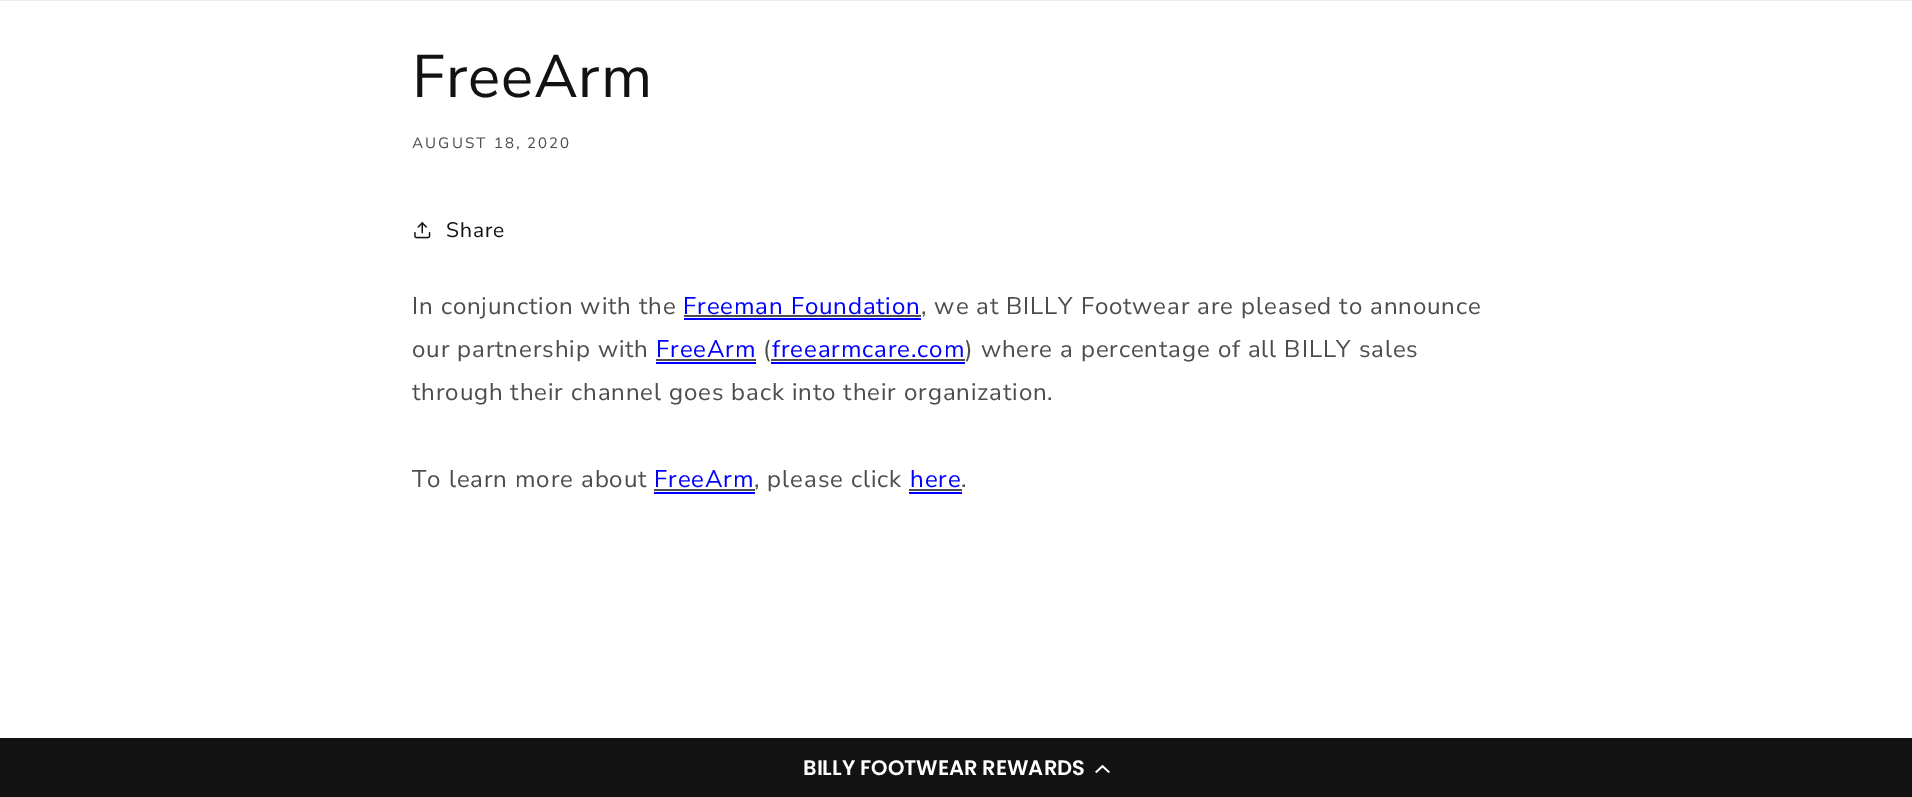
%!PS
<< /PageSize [1912 797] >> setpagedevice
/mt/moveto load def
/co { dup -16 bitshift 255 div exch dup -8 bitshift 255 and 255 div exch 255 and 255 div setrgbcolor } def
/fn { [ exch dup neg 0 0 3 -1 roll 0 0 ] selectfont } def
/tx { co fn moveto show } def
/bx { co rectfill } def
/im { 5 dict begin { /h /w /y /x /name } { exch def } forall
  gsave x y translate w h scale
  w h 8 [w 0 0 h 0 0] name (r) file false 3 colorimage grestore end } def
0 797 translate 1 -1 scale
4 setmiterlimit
0 0 1912 797 16#FFFFFF bx
0 0 1912 1 16#ECECEC bx
(media/1.raw) 414 222 17 17 im
684 318 237 2 16#0000FF bx
684 315 237 2 16#4D4D4D bx
656 362 100 2 16#0000FF bx
656 359 100 2 16#4D4D4D bx
771 362 194 2 16#0000FF bx
771 359 194 2 16#4D4D4D bx
654 492 101 2 16#0000FF bx
654 489 101 2 16#4D4D4D bx
909 492 53 2 16#0000FF bx
909 489 53 2 16#4D4D4D bx
0 738 1912 59 16#121212 bx
(media/2.raw) 1095 764 15 10 im
/NunitoSans-Regular 60 fn
412 97 mt .9 0 (FreeArm) ashow
/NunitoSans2-Regular 15 fn
16#4D4D4D co
412 148 mt 2 0 (AUGUST 18, 2020) ashow
/NunitoSans-Regular 21 fn
16#121212 co
446 237 mt .9 0 (Share) ashow
/NunitoSans-Regular 24 fn
16#4D4D4D co
412 314 mt .9 0 (In conjunction with the) ashow
16#0000FF co
683 314 mt .9 0 (Freeman Foundation) ashow
16#4D4D4D co
921 314 mt .9 0 (, we at BILLY Footwear are pleased to announce) ashow
412 357 mt .9 0 (our partnership with) ashow
16#0000FF co
656 357 mt .9 0 (FreeArm) ashow
16#4D4D4D co
763 357 mt .9 0 (\() ashow
16#0000FF co
772 357 mt .9 0 (freearmcare.com) ashow
16#4D4D4D co
965 357 mt .9 0 (\) where a percentage of all BILLY sales) ashow
412 400 mt .9 0 (through their channel goes back into their organization.) ashow
412 487 mt .9 0 (To learn more about) ashow
16#0000FF co
654 487 mt .9 0 (FreeArm) ashow
16#4D4D4D co
754 487 mt .9 0 (, please click) ashow
16#0000FF co
910 487 mt .9 0 (here) ashow
16#4D4D4D co
961 487 mt .9 0 (.) ashow
(BILLY FOOTWEAR REWARDS) 803 775 /Poppins-SemiBold 21 16#FFFFFF tx
showpage
